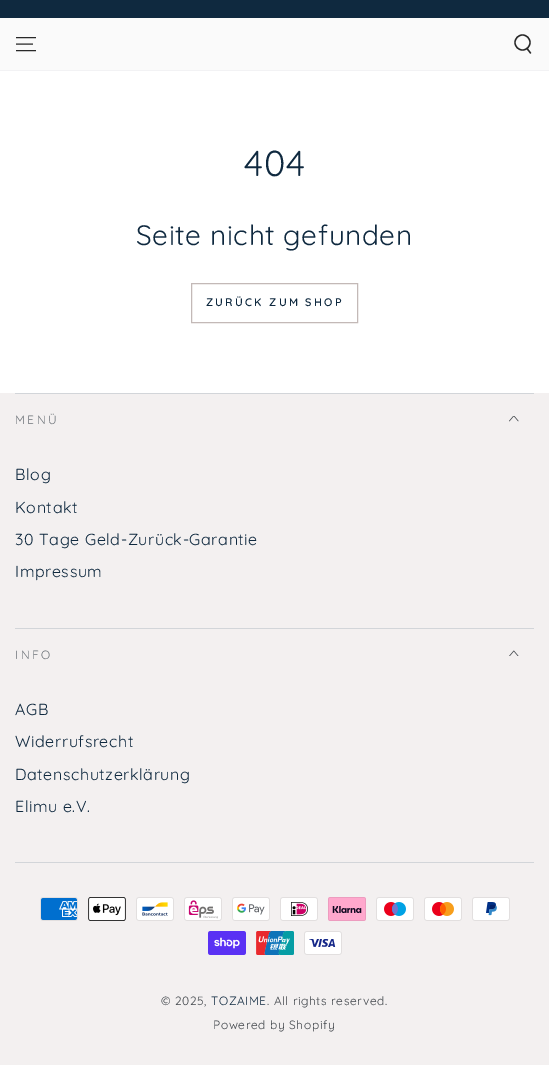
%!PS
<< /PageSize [549 1065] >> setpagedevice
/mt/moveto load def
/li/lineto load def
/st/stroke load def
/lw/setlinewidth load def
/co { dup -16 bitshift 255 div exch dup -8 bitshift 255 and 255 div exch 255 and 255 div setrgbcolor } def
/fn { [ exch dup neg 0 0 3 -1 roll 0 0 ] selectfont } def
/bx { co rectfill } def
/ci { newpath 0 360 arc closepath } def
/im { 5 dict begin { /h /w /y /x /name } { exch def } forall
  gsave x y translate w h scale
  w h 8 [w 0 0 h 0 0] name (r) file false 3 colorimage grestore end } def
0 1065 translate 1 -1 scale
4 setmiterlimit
0 0 549 1065 16#FFFFFF bx
0 0 549 18 16#0F293F bx
0 70 549 1 16#F2F2F4 bx
0 18 549 52 16#FAFAFA bx
16#282828 co
1.1 lw
16 50.5 mt 36 50.5 li 16 44 mt 33 44 li 16 37.5 mt 36 37.5 li st
1.3 lw
522.5 42.5 7.5 ci st
1 setlinecap
527 48.5 mt 530.5 53 li st
16#C3B9B7 co
1 lw
0 setlinecap
191.5 283.5 166 39 rectstroke
0 393 549 672 16#F3F0F0 bx
15 393 519 1 16#D2D5D9 bx
15 628 519 1 16#D2D5D9 bx
(media/1.raw) 509 416 10 6 im
15 862 519 1 16#D2D5D9 bx
(media/2.raw) 509 650 10 6 im
(media/3.raw) 40 897 38 24 im
(media/4.raw) 88 897 38 24 im
(media/5.raw) 136 897 38 24 im
(media/6.raw) 184 897 38 24 im
(media/7.raw) 232 897 38 24 im
(media/8.raw) 280 897 38 24 im
(media/9.raw) 328 897 38 24 im
(media/10.raw) 376 897 38 24 im
(media/11.raw) 424 897 38 24 im
(media/12.raw) 472 897 38 24 im
(media/13.raw) 208 931 38 24 im
(media/14.raw) 256 931 38 24 im
(media/15.raw) 304 931 38 24 im
/Quicksand-Regular 36 fn
16#0F293F co
244 176 mt .6 0 (404) ashow
/Quicksand-Regular 28 fn
136 245 mt .6 0 (Seite nicht gefunden) ashow
/Quicksand-SemiBold 11 fn
206 306 mt 2.25 0 (ZURÜCK ZUM SHOP) ashow
/Quicksand-Regular 12 fn
16#6B7177 co
15 424 mt 2.5 0 (MENÜ) ashow
/Quicksand-Regular 16 fn
16#0F293F co
15 480 mt .6 0 (Blog) ashow
15 513 mt .6 0 (Kontakt) ashow
15 545 mt .6 0 (30 Tage Geld-Zurück-Garantie) ashow
15 577 mt .6 0 (Impressum) ashow
/Quicksand-Regular 12 fn
16#6B7177 co
15 659 mt 2.5 0 (INFO) ashow
/Quicksand-Regular 16 fn
16#0F293F co
15 715 mt .6 0 (AGB) ashow
15 747 mt .6 0 (Widerrufsrecht) ashow
15 780 mt .6 0 (Datenschutzerklärung) ashow
15 812 mt .6 0 (Elimu e.V.) ashow
/Quicksand-Regular 12 fn
16#42474C co
161 1005 mt .6 0 (© 2025,) ashow
16#0F293F co
211 1005 mt .6 0 (TOZAIME) ashow
16#42474C co
267 1005 mt .6 0 (. All rights reserved.) ashow
213 1029 mt .6 0 (Powered by Shopify) ashow
showpage
